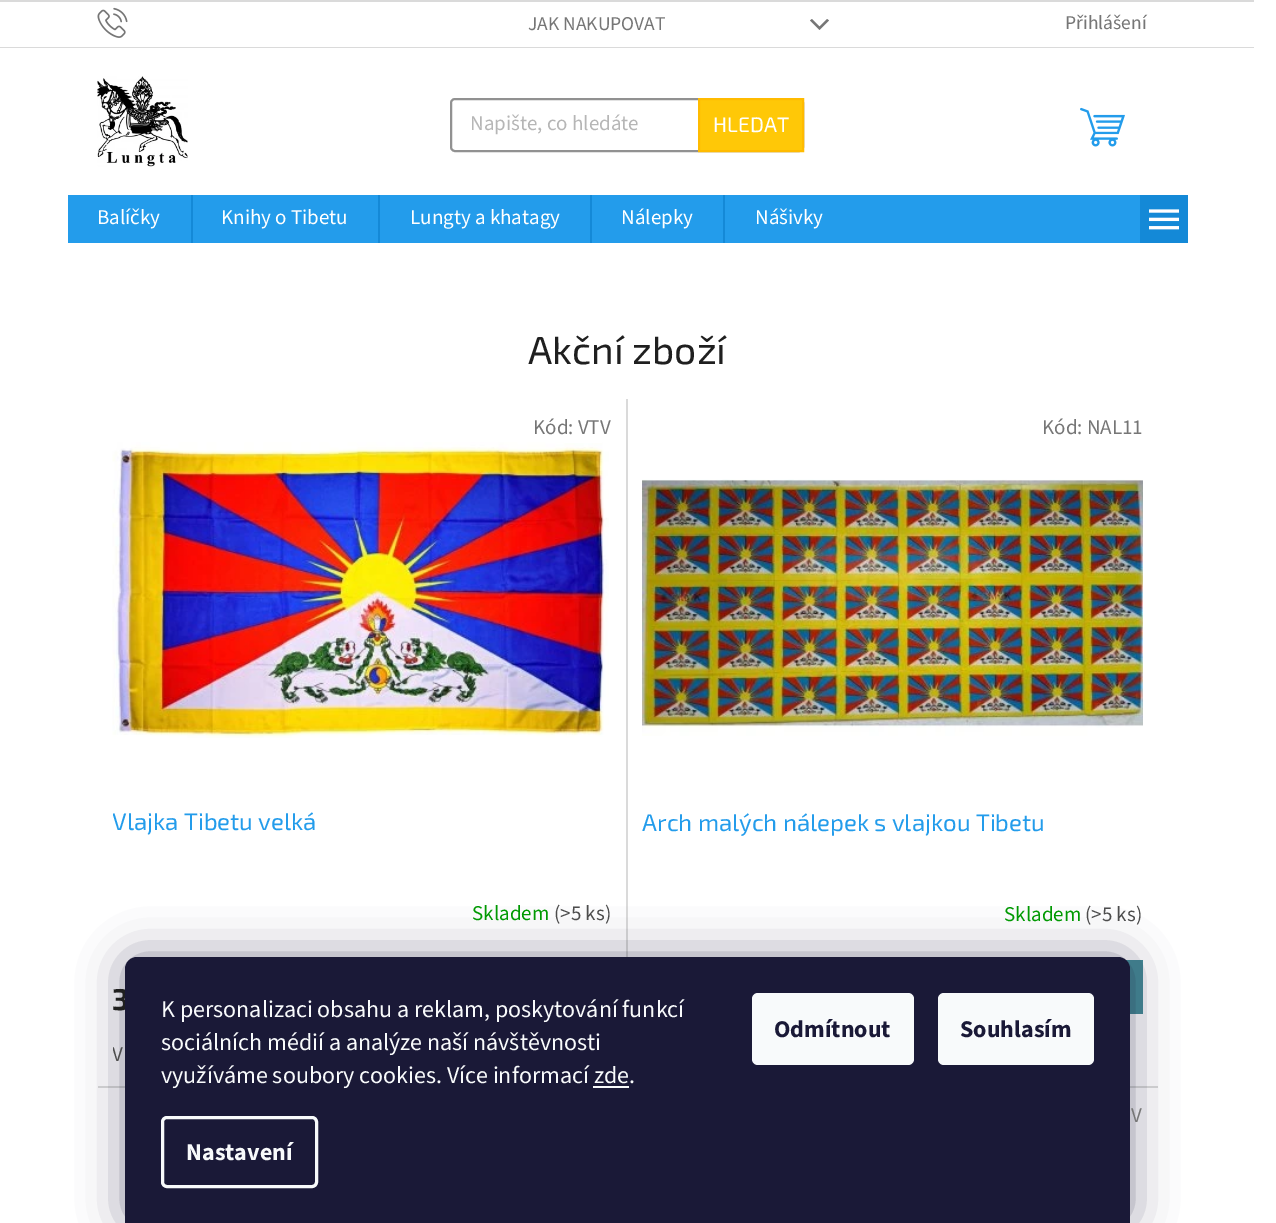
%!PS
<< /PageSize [1276 1223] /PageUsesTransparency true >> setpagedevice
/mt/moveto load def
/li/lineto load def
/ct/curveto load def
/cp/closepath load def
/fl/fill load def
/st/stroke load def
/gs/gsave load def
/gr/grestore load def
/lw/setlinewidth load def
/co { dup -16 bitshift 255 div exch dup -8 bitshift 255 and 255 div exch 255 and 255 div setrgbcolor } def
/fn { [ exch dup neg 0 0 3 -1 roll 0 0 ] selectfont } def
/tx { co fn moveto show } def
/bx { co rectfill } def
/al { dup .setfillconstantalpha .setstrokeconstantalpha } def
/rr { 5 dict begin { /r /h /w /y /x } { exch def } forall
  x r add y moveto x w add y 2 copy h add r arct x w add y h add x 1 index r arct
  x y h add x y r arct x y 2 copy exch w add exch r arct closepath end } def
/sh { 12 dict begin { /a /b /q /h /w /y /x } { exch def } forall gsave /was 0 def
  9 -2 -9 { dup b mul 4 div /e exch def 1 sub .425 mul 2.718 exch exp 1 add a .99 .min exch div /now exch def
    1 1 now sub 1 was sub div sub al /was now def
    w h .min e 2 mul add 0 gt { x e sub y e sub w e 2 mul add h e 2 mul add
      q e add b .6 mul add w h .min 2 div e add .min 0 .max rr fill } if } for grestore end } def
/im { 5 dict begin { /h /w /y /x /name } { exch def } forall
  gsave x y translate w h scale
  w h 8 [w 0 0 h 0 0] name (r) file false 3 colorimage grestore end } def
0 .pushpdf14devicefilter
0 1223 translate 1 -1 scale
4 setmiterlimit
0 0 1276 1223 16#FFFFFF bx
0 0 1254 2 16#DADADA bx
0 47 1254 1 16#DADADA bx
(media/1.raw) 97 7 31 31 im
16#767676 co
810 20.5 mt 812 19 li 819.5 26.5 li 827 19 li 829 20.5 li 819.5 30 li cp fl
(media/2.raw) 97 76 91 91 im
16#919191 co
2 lw
451 99 352 52 4 rr st
16#FFC807 co
699 99 mt 803 99 li 803 151 li 699 151 li cp gs fl gr
16#FFBB00 co
st
(media/3.raw) 1080 107 45 40 im
68 195 1072 48 16#239CEB bx
191 195 2 48 16#1489D7 bx
378 195 2 48 16#1489D7 bx
590 195 2 48 16#1489D7 bx
723 195 2 48 16#1489D7 bx
1140 195 48 48 16#1489D7 bx
(media/4.raw) 1149 209 30 21 im
626 399 2 558 16#DADADA bx
(media/5.raw) 112 442 497 296 im
564 442 38 1 16#FFFFFF bx
(media/6.raw) 642 479 501 257 im
1125 960 18 54 16#468C98 bx
98 1086 27 2 16#DADADA bx
1130 1086 28 2 16#DADADA bx
16#1B1939 co
125 957 1005 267 12 22.5 .5 sh
(JAK NAKUPOVAT) 528 30 /SourceSans3-Regular 19.5 16#767676 tx
(Přihlášení) 1065 29 /SourceSans3-Regular 19.5 16#767676 tx
(Napište, co hledáte) 470 130 /SourceSans3-Regular 21 16#B6B6B6 tx
(HLEDAT) 713 132 /Exo2-Regular 21 16#FFFFFF tx
(Balíčky) 97 224 /SourceSans3-Regular 21 16#FFFFFF tx
(Knihy o Tibetu) 221 224 /SourceSans3-Regular 21 16#FFFFFF tx
(Lungty a khatagy) 410 224 /SourceSans3-Regular 21 16#FFFFFF tx
(Nálepky) 621 224 /SourceSans3-Regular 21 16#FFFFFF tx
(Nášivky) 755 224 /SourceSans3-Regular 21 16#FFFFFF tx
(Akční zboží) 528 364 /Exo2-Regular 39 16#1F1F1F tx
(Kód: VTV) 533 434 /SourceSans3-Regular 21 16#767676 tx
gs
113 804 498 68 rectclip
(Vlajka Tibetu velká) 112 830 /Exo2-Regular 24 16#239CEB tx
gr
(Skladem) 472 920 /SourceSans3-Regular 21 16#009901 tx
(\(>5 ks\)) 554 920 /SourceSans3-Regular 21 16#4D4D4D tx
(3) 112 1010 /Exo2-Bold 30 16#1F1F1F tx
gs
113 1041 498 29 rectclip
(V) 112 1061 /SourceSans3-Regular 21 16#4D4D4D tx
gr
(Kód: NAL11) 1042 434 /SourceSans3-Regular 21 16#767676 tx
(Arch malých nálepek s vlajkou Tibetu) 642 831 /Exo2-Regular 24 16#239CEB tx
(Skladem) 1004 921 /SourceSans3-Regular 21 16#009901 tx
(\(>5 ks\)) 1085 921 /SourceSans3-Regular 21 16#4D4D4D tx
(V) 1131 1122 /SourceSans3-Regular 21 16#767676 tx
16#1A1937 co
137 957 mt 1118 957 li 1124.5 957 1130 962.5 1130 969 ct 1130 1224 li 125 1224 li 125 969 li 125 962.5 130.5 957 137 957 ct cp fl
(K personalizaci obsahu a reklam, poskytování funkcí) 161 1017 /SourceSans3-Regular 24 16#F8FAFB tx
(sociálních médií a analýze naší návštěvnosti) 161 1050 /SourceSans3-Regular 24 16#F8FAFB tx
(využíváme soubory cookies. Více informací zde.) 161 1083 /SourceSans3-Regular 24 16#F8FAFB tx
593 1086 36 2 16#F8FAFB bx
3 lw
162.5 1117.5 154 69 4.5 rr st
(Nastavení) 186 1160 /SourceSans3-Bold 24 16#F8FAFB tx
752 993 162 72 6 rr fl
(Odmítnout) 774 1037 /SourceSans3-Bold 24 16#1A1937 tx
16#F8FAFB co
938 993 156 72 6 rr fl
(Souhlasím) 960 1037 /SourceSans3-Bold 24 16#1A1937 tx
.poppdf14devicefilter showpage
